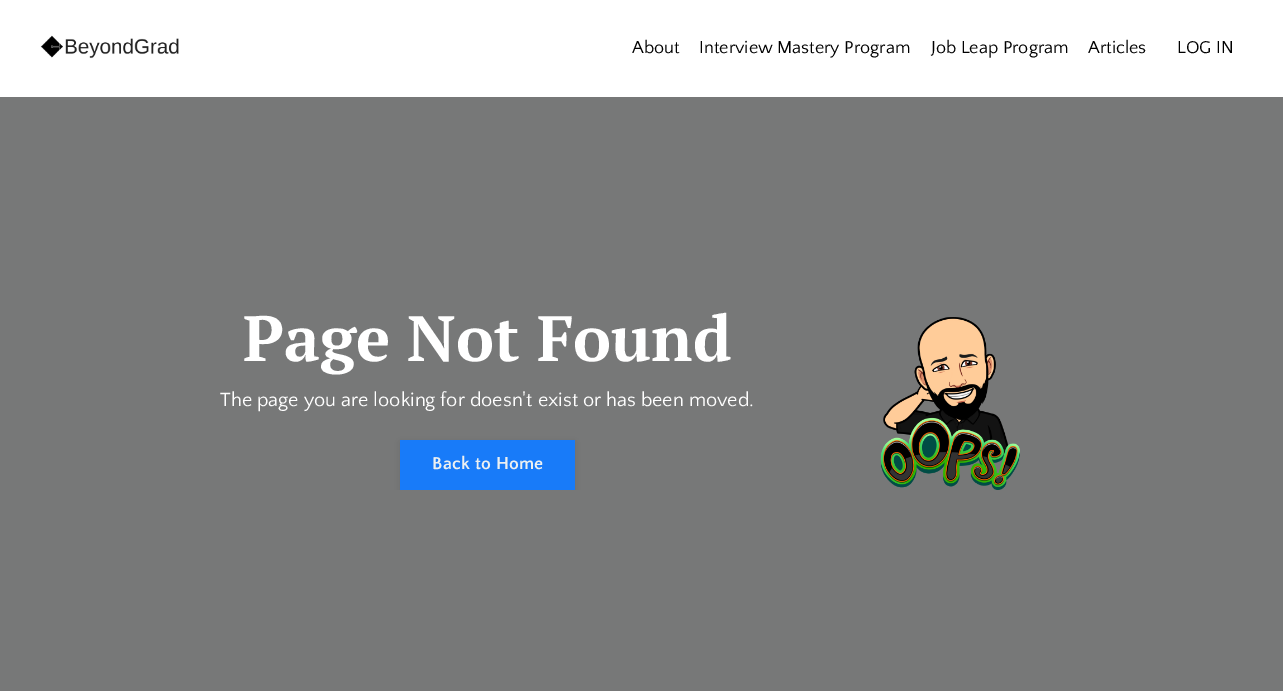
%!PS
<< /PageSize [1283 691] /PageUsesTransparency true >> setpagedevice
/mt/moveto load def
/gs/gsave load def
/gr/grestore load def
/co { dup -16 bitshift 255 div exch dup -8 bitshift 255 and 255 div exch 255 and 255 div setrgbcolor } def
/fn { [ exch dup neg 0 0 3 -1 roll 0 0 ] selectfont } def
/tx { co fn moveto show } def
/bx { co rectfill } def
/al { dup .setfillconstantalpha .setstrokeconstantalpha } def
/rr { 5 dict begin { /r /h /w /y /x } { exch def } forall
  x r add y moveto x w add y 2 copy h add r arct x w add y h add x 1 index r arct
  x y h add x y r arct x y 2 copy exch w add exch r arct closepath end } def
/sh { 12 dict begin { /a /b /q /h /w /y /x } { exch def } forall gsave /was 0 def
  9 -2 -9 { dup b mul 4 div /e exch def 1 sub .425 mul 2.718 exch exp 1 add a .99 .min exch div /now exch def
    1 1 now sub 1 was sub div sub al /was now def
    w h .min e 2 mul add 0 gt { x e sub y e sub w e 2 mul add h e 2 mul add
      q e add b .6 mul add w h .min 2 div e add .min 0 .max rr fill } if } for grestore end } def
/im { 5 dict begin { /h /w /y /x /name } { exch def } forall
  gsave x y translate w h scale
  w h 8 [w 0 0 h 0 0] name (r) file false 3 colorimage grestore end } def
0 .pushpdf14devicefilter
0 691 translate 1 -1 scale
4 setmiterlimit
0 0 1283 691 16#FFFFFF bx
(media/1.raw) 40 35 139 24 im
0 97 1283 594 16#777878 bx
gs
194 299 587 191 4 rr clip newpath
16#000000 co
400 442 175 50 0 5 .1 sh
gr
400 440 175 50 16#187BF9 bx
(media/2.raw) 880 317 140 173 im
(About) 632 53 /QuattrocentoSans-Regular 18 16#000000 tx
(Interview Mastery Program) 699 53 /QuattrocentoSans-Regular 18 16#000000 tx
(Job Leap Program) 931 53 /QuattrocentoSans-Regular 18 16#000000 tx
(Articles) 1088 53 /QuattrocentoSans-Regular 18 16#000000 tx
(LOG IN) 1177 53 /QuattrocentoSans-Regular 18 16#000000 tx
(Page Not Found) 243 361 /PTSerif-Bold 64 16#FFFFFF tx
(The page you are looking for doesn't exist or has been moved.) 220 406 /QuattrocentoSans-Regular 20 16#FFFFFF tx
/QuattrocentoSans-Bold 18 fn
16#ECF0F1 co
432 469 mt .25 0 (Back to Home) ashow
.poppdf14devicefilter showpage
